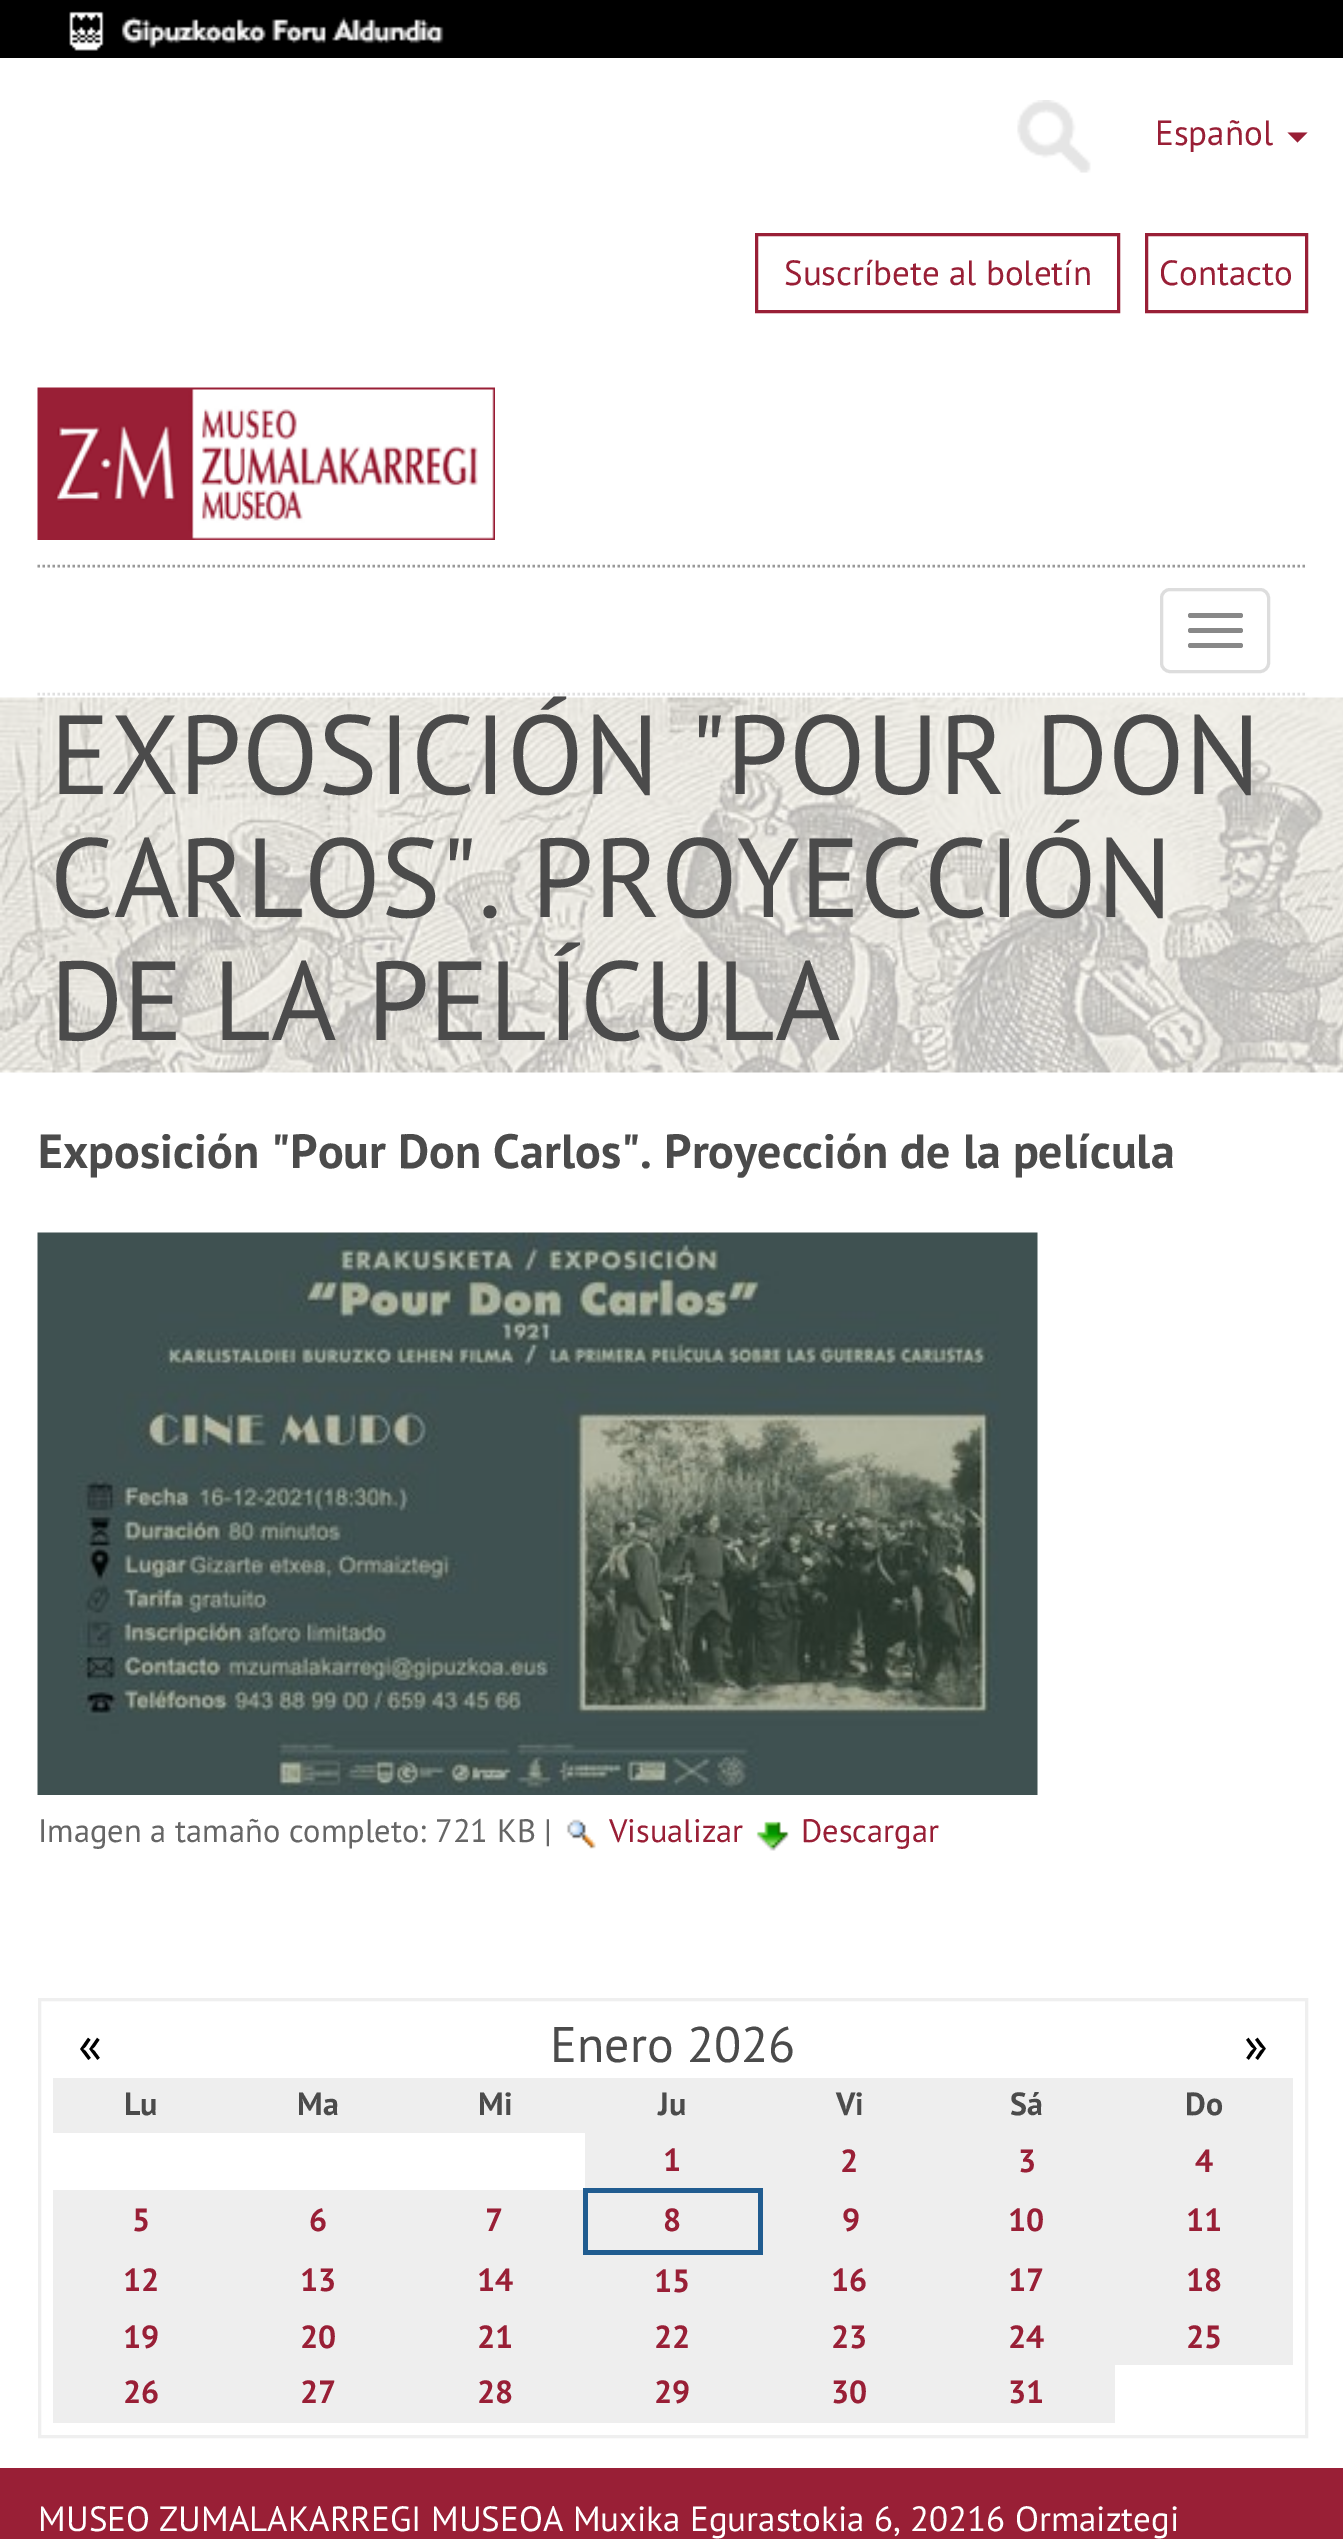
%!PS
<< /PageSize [1343 2539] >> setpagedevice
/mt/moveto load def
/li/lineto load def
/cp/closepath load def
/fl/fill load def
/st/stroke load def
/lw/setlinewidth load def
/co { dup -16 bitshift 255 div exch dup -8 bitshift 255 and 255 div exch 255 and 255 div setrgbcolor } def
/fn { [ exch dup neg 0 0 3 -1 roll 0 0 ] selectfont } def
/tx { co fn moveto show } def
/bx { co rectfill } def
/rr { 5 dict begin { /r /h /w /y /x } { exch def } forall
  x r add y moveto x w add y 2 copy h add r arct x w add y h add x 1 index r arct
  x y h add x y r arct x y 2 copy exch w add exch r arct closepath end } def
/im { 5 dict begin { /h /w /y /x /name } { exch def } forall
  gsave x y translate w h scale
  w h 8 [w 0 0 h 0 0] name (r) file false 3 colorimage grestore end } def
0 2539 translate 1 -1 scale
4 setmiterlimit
0 0 1343 2539 16#FFFFFF bx
0 0 1343 58 16#000000 bx
(media/1.raw) 69 11 375 40 im
(media/2.raw) 1017 100 74 73 im
16#991F36 co
1287.5 132.5 mt 1307.5 132.5 li 1297.5 142.5 li cp fl
3 lw
756.5 234.5 362 77 rectstroke
1146.5 234.5 160 77 rectstroke
(media/3.raw) 37 387 458 153 im
16#999999 co
2.5 lw
[2.5 2.5] 0 setdash
37.5 566 mt 1307.5 566 li st
16#E0E0E0 co
37.5 694 mt 1307.5 694 li st
16#DDDDDD co
3 lw
[] 0 setdash
1161.5 589.5 107 82 8.5 rr st
16#888888 co
1188 613 55 5 2.5 rr fl
1188 628 55 5 2.5 rr fl
1188 643 55 5 2.5 rr fl
(media/4.raw) 0 697 1343 376 im
(media/5.raw) 37 1232 1001 563 im
(media/6.raw) 566 1819 30 30 im
(media/7.raw) 756 1821 33 30 im
16#EFEFEF co
39.5 1999.5 1267 437 rectstroke
53 2078 1240 55 16#EEEEEE bx
585 2133 175 55 16#EEEEEE bx
760 2133 533 57 16#EEEEEE bx
53 2190 530 63 16#EEEEEE bx
588 2193 170 57 16#EEEEEE bx
583 2188 180 5 16#205C90 bx
760 2253 533 57 16#EEEEEE bx
758 2188 5 67 16#205C90 bx
53 2253 532 57 16#EEEEEE bx
583 2250 180 5 16#205C90 bx
583 2188 5 67 16#205C90 bx
763 2190 530 63 16#EEEEEE bx
585 2255 175 55 16#EEEEEE bx
53 2310 1240 55 16#EEEEEE bx
53 2365 1062 58 16#EEEEEE bx
0 2468 1343 71 16#991F36 bx
(Español) 1155 145 /PTSans-Regular 35 16#991F36 tx
(Suscríbete al boletín) 784 285 /PTSans-Regular 35 16#991F36 tx
(Contacto) 1159 285 /PTSans-Regular 35 16#991F36 tx
(EXPOSICIÓN "POUR DON) 50 794 /PTSans-Regular 112 16#4B4B4B tx
(CARLOS". PROYECCIÓN) 50 917 /PTSans-Regular 112 16#4B4B4B tx
(DE LA PELÍCULA) 50 1040 /PTSans-Regular 112 16#4B4B4B tx
(Exposición "Pour Don Carlos". Proyección de la película) 38 1168 /PTSans-Bold 48 16#4B4B4B tx
(Imagen a tamaño completo: 721 KB |) 38 1842 /PTSans-Regular 32.5 16#666666 tx
(Visualizar) 609 1842 /PTSans-Regular 32.5 16#991F36 tx
(Descargar) 801 1842 /PTSans-Regular 32.5 16#991F36 tx
(«) 78 2062 /PTSans-Regular 50 16#000000 tx
(Enero 2026) 550 2062 /PTSans-Regular 50 16#4B4B4B tx
(») 1244 2062 /PTSans-Regular 50 16#000000 tx
(Lu) 124 2115 /PTSans-Bold 32 16#4B4B4B tx
(Ma) 297 2115 /PTSans-Bold 32 16#4B4B4B tx
(Mi) 478 2115 /PTSans-Bold 32 16#4B4B4B tx
(Ju) 658 2115 /PTSans-Bold 32 16#4B4B4B tx
(Vi) 836 2115 /PTSans-Bold 32 16#4B4B4B tx
(Sá) 1010 2115 /PTSans-Bold 32 16#4B4B4B tx
(Do) 1185 2115 /PTSans-Bold 32 16#4B4B4B tx
(1) 663 2171 /PTSans-Bold 32 16#991F36 tx
(2) 840 2172 /PTSans-Bold 32 16#991F36 tx
(3) 1018 2172 /PTSans-Bold 32 16#991F36 tx
(4) 1195 2172 /PTSans-Bold 32 16#991F36 tx
(5) 132 2231 /PTSans-Bold 32 16#991F36 tx
(6) 309 2231 /PTSans-Bold 32 16#991F36 tx
(7) 485 2231 /PTSans-Bold 32 16#991F36 tx
(8) 663 2231 /PTSans-Bold 32 16#991F36 tx
(9) 842 2231 /PTSans-Bold 32 16#991F36 tx
(10) 1008 2231 /PTSans-Bold 32 16#991F36 tx
(11) 1186 2231 /PTSans-Bold 32 16#991F36 tx
(12) 123 2291 /PTSans-Bold 32 16#991F36 tx
(13) 300 2291 /PTSans-Bold 32 16#991F36 tx
(14) 477 2291 /PTSans-Bold 32 16#991F36 tx
(15) 654 2292 /PTSans-Bold 32 16#991F36 tx
(16) 831 2291 /PTSans-Bold 32 16#991F36 tx
(17) 1008 2291 /PTSans-Bold 32 16#991F36 tx
(18) 1186 2291 /PTSans-Bold 32 16#991F36 tx
(19) 123 2348 /PTSans-Bold 32 16#991F36 tx
(20) 300 2348 /PTSans-Bold 32 16#991F36 tx
(21) 477 2348 /PTSans-Bold 32 16#991F36 tx
(22) 654 2348 /PTSans-Bold 32 16#991F36 tx
(23) 831 2348 /PTSans-Bold 32 16#991F36 tx
(24) 1008 2348 /PTSans-Bold 32 16#991F36 tx
(25) 1186 2348 /PTSans-Bold 32 16#991F36 tx
(26) 123 2403 /PTSans-Bold 32 16#991F36 tx
(27) 300 2403 /PTSans-Bold 32 16#991F36 tx
(28) 477 2403 /PTSans-Bold 32 16#991F36 tx
(29) 654 2403 /PTSans-Bold 32 16#991F36 tx
(30) 831 2403 /PTSans-Bold 32 16#991F36 tx
(31) 1008 2403 /PTSans-Bold 32 16#991F36 tx
(MUSEO ZUMALAKARREGI MUSEOA Muxika Egurastokia 6, 20216 Ormaiztegi) 38 2531 /PTSans-Regular 35 16#FFFFFF tx
showpage
